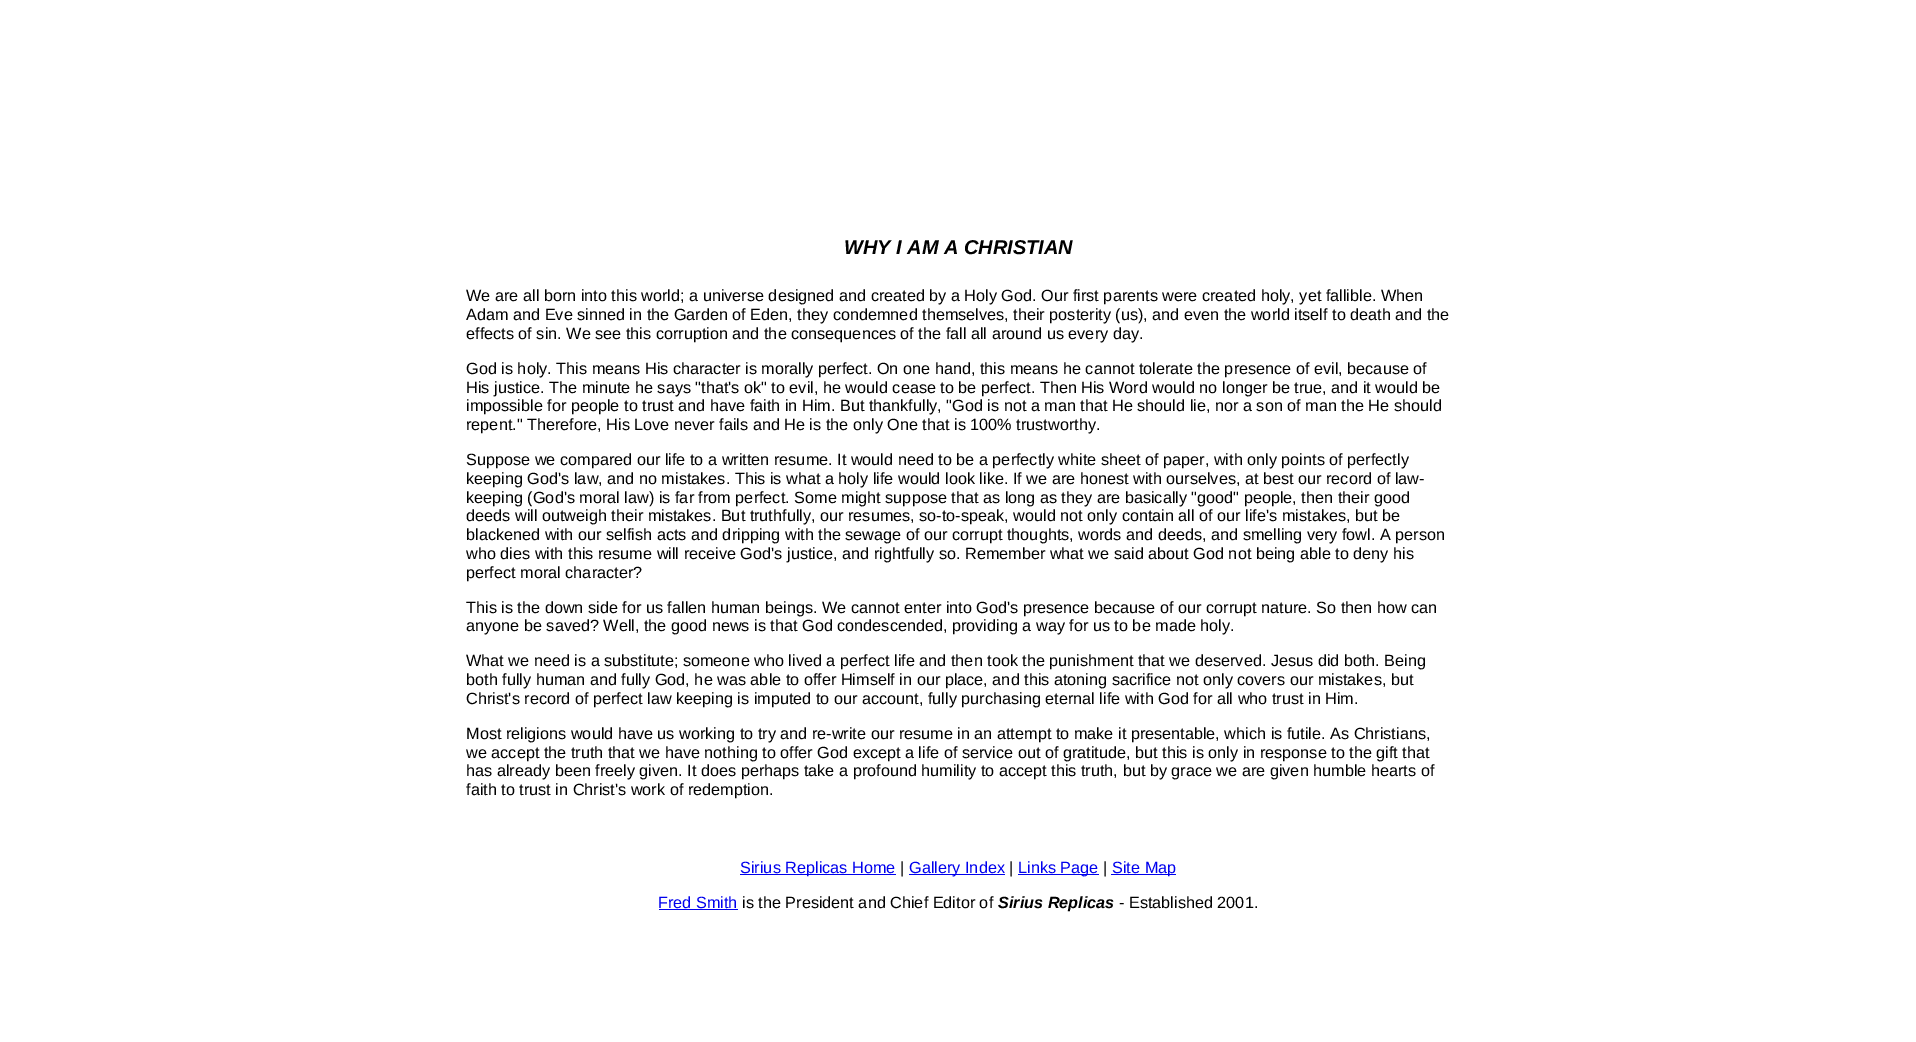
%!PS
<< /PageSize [1916 1042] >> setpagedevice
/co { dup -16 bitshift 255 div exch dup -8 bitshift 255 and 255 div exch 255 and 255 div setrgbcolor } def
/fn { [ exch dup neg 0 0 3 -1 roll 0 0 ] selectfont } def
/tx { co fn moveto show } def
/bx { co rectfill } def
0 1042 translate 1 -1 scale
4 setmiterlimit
0 0 1916 1042 16#FFFFFF bx
740 874 156 1 16#0000EE bx
909 874 96 1 16#0000EE bx
1018 874 81 1 16#0000EE bx
1111 874 65 1 16#0000EE bx
659 909 79 1 16#0000EE bx
(WHY I AM A CHRISTIAN) 844 254 /LiberationSans-BoldItalic 20 16#000000 tx
(We are all born into this world; a universe designed and created by a Holy God. Our first parents were created holy, yet fallible. When) 466 301 /LiberationSans-Regular 16.25 16#000000 tx
(Adam and Eve sinned in the Garden of Eden, they condemned themselves, their posterity \(us\), and even the world itself to death and the) 466 320 /LiberationSans-Regular 16.25 16#000000 tx
(effects of sin. We see this corruption and the consequences of the fall all around us every day.) 466 339 /LiberationSans-Regular 16.25 16#000000 tx
(God is holy. This means His character is morally perfect. On one hand, this means he cannot tolerate the presence of evil, because of) 466 374 /LiberationSans-Regular 16.25 16#000000 tx
(His justice. The minute he says "that's ok" to evil, he would cease to be perfect. Then His Word would no longer be true, and it would be) 466 393 /LiberationSans-Regular 16.25 16#000000 tx
(impossible for people to trust and have faith in Him. But thankfully, "God is not a man that He should lie, nor a son of man the He should) 466 411 /LiberationSans-Regular 16.25 16#000000 tx
(repent." Therefore, His Love never fails and He is the only One that is 100% trustworthy.) 466 430 /LiberationSans-Regular 16.25 16#000000 tx
(Suppose we compared our life to a written resume. It would need to be a perfectly white sheet of paper, with only points of perfectly) 466 465 /LiberationSans-Regular 16.25 16#000000 tx
(keeping God's law, and no mistakes. This is what a holy life would look like. If we are honest with ourselves, at best our record of law-) 466 484 /LiberationSans-Regular 16.25 16#000000 tx
(keeping \(God's moral law\) is far from perfect. Some might suppose that as long as they are basically "good" people, then their good) 466 503 /LiberationSans-Regular 16.25 16#000000 tx
(deeds will outweigh their mistakes. But truthfully, our resumes, so-to-speak, would not only contain all of our life's mistakes, but be) 466 521 /LiberationSans-Regular 16.25 16#000000 tx
(blackened with our selfish acts and dripping with the sewage of our corrupt thoughts, words and deeds, and smelling very fowl. A person) 466 540 /LiberationSans-Regular 16.25 16#000000 tx
(who dies with this resume will receive God's justice, and rightfully so. Remember what we said about God not being able to deny his) 466 559 /LiberationSans-Regular 16.25 16#000000 tx
(perfect moral character?) 466 578 /LiberationSans-Regular 16.25 16#000000 tx
(This is the down side for us fallen human beings. We cannot enter into God's presence because of our corrupt nature. So then how can) 466 613 /LiberationSans-Regular 16.25 16#000000 tx
(anyone be saved? Well, the good news is that God condescended, providing a way for us to be made holy.) 466 631 /LiberationSans-Regular 16.25 16#000000 tx
(What we need is a substitute; someone who lived a perfect life and then took the punishment that we deserved. Jesus did both. Being) 466 666 /LiberationSans-Regular 16.25 16#000000 tx
(both fully human and fully God, he was able to offer Himself in our place, and this atoning sacrifice not only covers our mistakes, but) 466 685 /LiberationSans-Regular 16.25 16#000000 tx
(Christ's record of perfect law keeping is imputed to our account, fully purchasing eternal life with God for all who trust in Him.) 466 704 /LiberationSans-Regular 16.25 16#000000 tx
(Most religions would have us working to try and re-write our resume in an attempt to make it presentable, which is futile. As Christians,) 466 739 /LiberationSans-Regular 16.25 16#000000 tx
(we accept the truth that we have nothing to offer God except a life of service out of gratitude, but this is only in response to the gift that) 466 758 /LiberationSans-Regular 16.25 16#000000 tx
(has already been freely given. It does perhaps take a profound humility to accept this truth, but by grace we are given humble hearts of) 466 776 /LiberationSans-Regular 16.25 16#000000 tx
(faith to trust in Christ's work of redemption.) 466 795 /LiberationSans-Regular 16.25 16#000000 tx
(Sirius Replicas Home) 740 873 /LiberationSans-Regular 16.25 16#0000EE tx
(|) 900 873 /LiberationSans-Regular 16.25 16#000000 tx
(Gallery Index) 909 873 /LiberationSans-Regular 16.25 16#0000EE tx
(|) 1009 873 /LiberationSans-Regular 16.25 16#000000 tx
(Links Page) 1018 873 /LiberationSans-Regular 16.25 16#0000EE tx
(|) 1103 873 /LiberationSans-Regular 16.25 16#000000 tx
(Site Map) 1112 873 /LiberationSans-Regular 16.25 16#0000EE tx
(Fred Smith) 658 908 /LiberationSans-Regular 16.25 16#0000EE tx
(is the President and Chief Editor of) 742 908 /LiberationSans-Regular 16.25 16#000000 tx
(Sirius Replicas) 998 908 /LiberationSans-BoldItalic 16.25 16#000000 tx
(- Established 2001.) 1119 908 /LiberationSans-Regular 16.25 16#000000 tx
showpage
